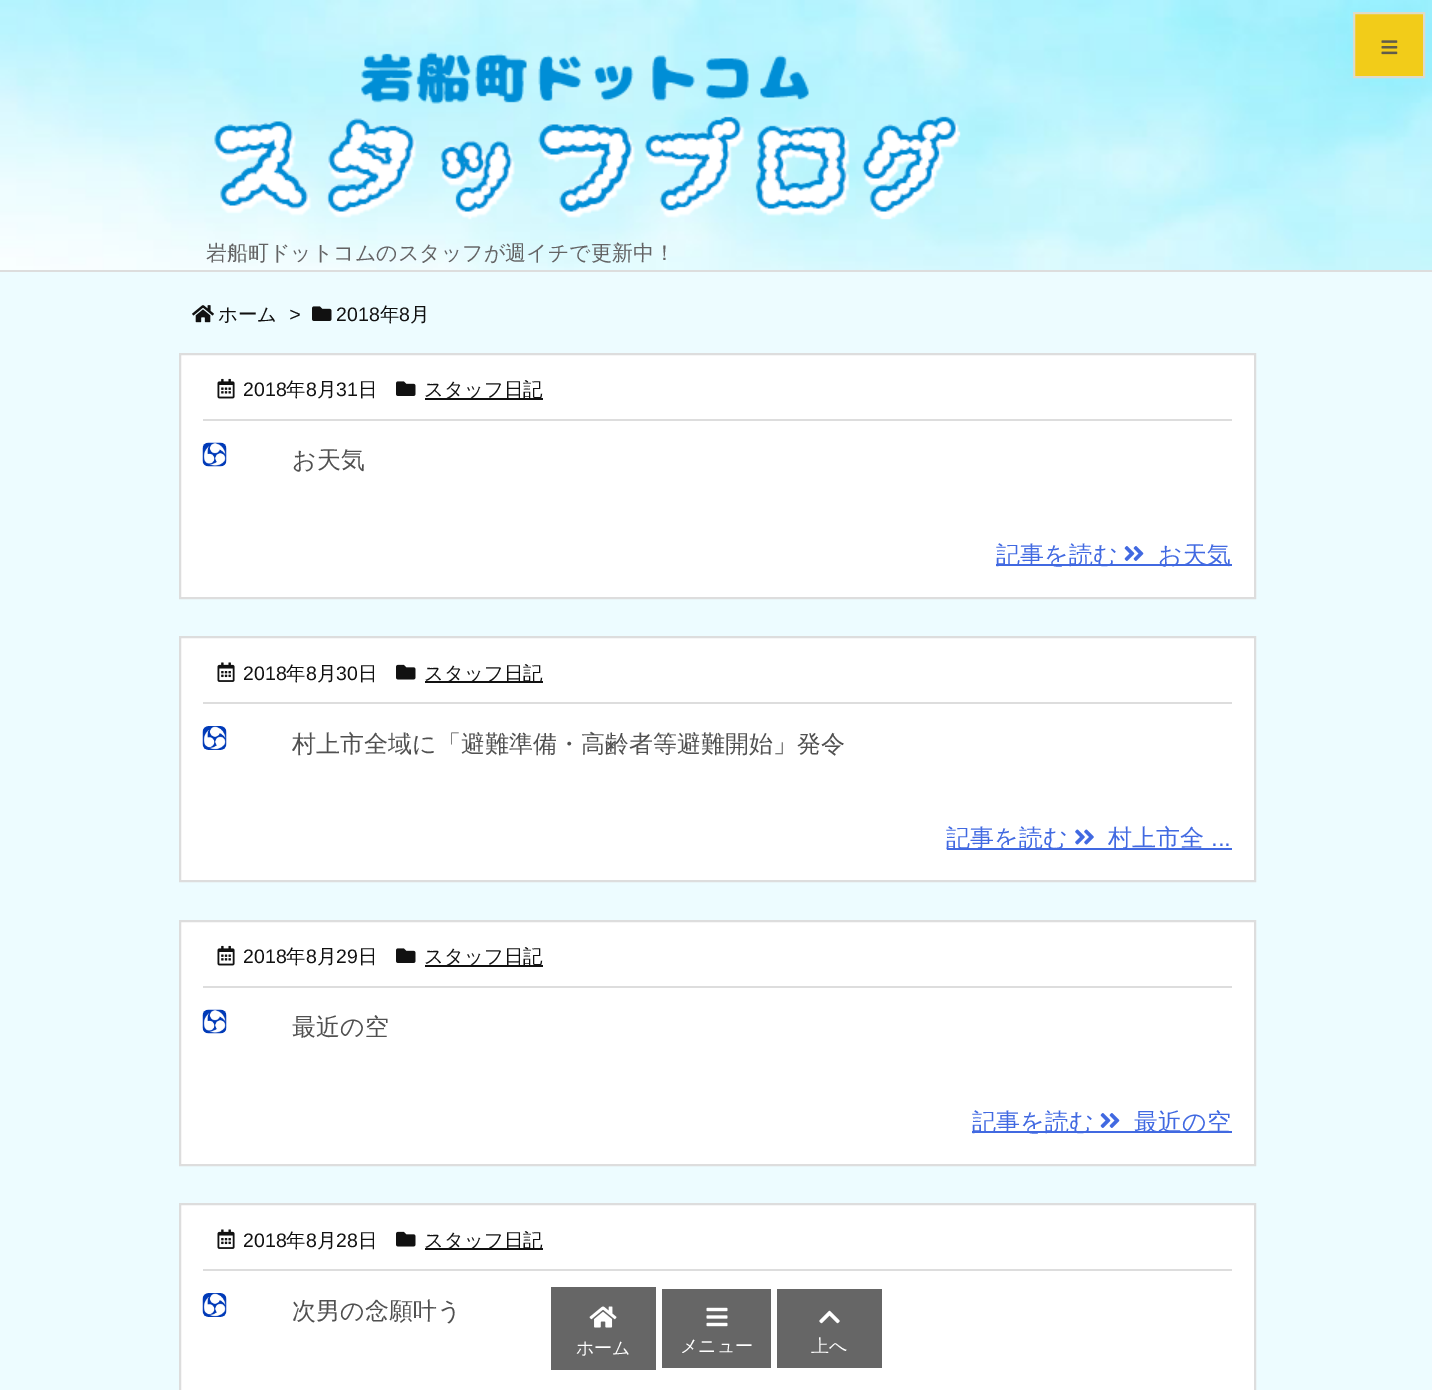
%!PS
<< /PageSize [1432 1390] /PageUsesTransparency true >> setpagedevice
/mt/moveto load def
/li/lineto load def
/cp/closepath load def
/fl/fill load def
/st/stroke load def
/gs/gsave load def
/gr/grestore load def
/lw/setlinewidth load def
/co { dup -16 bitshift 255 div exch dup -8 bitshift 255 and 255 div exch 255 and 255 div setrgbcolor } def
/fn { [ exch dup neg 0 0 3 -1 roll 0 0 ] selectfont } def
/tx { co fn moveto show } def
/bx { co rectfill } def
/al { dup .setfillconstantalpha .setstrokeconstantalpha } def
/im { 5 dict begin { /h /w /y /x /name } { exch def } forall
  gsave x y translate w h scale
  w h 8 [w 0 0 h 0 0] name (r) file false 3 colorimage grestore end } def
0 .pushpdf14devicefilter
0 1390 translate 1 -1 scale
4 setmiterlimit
0 0 1432 1390 16#EDFCFF bx
(media/2.raw) 0 0 1432 270 im
0.9 al
16#FCC800 co
1354 13 mt 1424 13 li 1424 77 li 1354 77 li cp fl
1 al
16#DFDBC9 co
2 lw
1354 13 mt 1424 13 li 1424 77 li 1354 77 li cp st
(media/1.raw) 1381 40 17 15 im
0 270 1432 2 16#DDDDDD bx
(media/3.raw) 214 52 747 168 im
(media/4.raw) 192 305 22 18 im
(media/5.raw) 312 306 20 15 im
16#FFFFFF co
180 354 mt 1255 354 li 1255 598 li 180 598 li cp gs fl gr
16#DDDDDD co
st
203 419 1029 2 16#DDDDDD bx
(media/6.raw) 217 378 18 21 im
(media/7.raw) 396 381 20 15 im
425 398 118 2 16#111111 bx
(media/8.raw) 202 442 25 25 im
996 564 236 2 16#4169E1 bx
(media/9.raw) 1124 546 20 15 im
16#FFFFFF co
180 637 mt 1255 637 li 1255 881 li 180 881 li cp gs fl gr
16#DDDDDD co
st
203 702 1029 2 16#DDDDDD bx
(media/10.raw) 217 662 18 20 im
(media/11.raw) 396 664 20 16 im
425 681 118 2 16#111111 bx
(media/12.raw) 202 726 25 24 im
947 848 285 2 16#4169E1 bx
(media/13.raw) 1075 829 19 16 im
16#FFFFFF co
180 921 mt 1255 921 li 1255 1165 li 180 1165 li cp gs fl gr
16#DDDDDD co
st
203 986 1029 2 16#DDDDDD bx
(media/6.raw) 217 945 18 21 im
(media/7.raw) 396 948 20 15 im
425 965 118 2 16#111111 bx
(media/14.raw) 202 1009 25 25 im
972 1131 260 2 16#4169E1 bx
(media/9.raw) 1100 1113 20 15 im
16#FFFFFF co
180 1204 mt 1255 1204 li 1255 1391 li 180 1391 li cp gs fl gr
16#DDDDDD co
st
203 1269 1029 2 16#DDDDDD bx
(media/10.raw) 217 1229 18 20 im
(media/11.raw) 396 1231 20 16 im
425 1248 118 2 16#111111 bx
(media/12.raw) 202 1293 25 24 im
551 1287 105 83 16#666666 bx
(media/15.raw) 589 1306 28 22 im
662 1289 109 79 16#666666 bx
(media/16.raw) 706 1307 22 20 im
777 1289 105 79 16#666666 bx
(media/17.raw) 819 1310 21 14 im
(岩船町ドットコムのスタッフが週イチで更新中！) 206 260 /WenQuanYiZenHei-Medium 21 16#636364 tx
(ホーム) 218 321 /WenQuanYiZenHei-Medium 19.5 16#111111 tx
(>) 289 321 /LiberationSans-Italic 19.5 16#111111 tx
(2018) 336 321 /LiberationSans-Regular 19.5 16#111111 tx
(年) 380 321 /WenQuanYiZenHei-Medium 19.5 16#111111 tx
(8) 399 321 /LiberationSans-Regular 19.5 16#111111 tx
(月) 410 321 /WenQuanYiZenHei-Medium 19.5 16#111111 tx
(2018) 243 396 /LiberationSans-Regular 19.5 16#111111 tx
(年) 286 396 /WenQuanYiZenHei-Medium 19.5 16#111111 tx
(8) 306 396 /LiberationSans-Regular 19.5 16#111111 tx
(月) 317 396 /WenQuanYiZenHei-Medium 19.5 16#111111 tx
(31) 336 396 /LiberationSans-Regular 19.5 16#111111 tx
(日) 358 396 /WenQuanYiZenHei-Medium 19.5 16#111111 tx
(スタッフ日記) 424 396 /WenQuanYiZenHei-Medium 19.5 16#111111 tx
(お天気) 292 468 /WenQuanYiZenHei-Medium 24 16#505050 tx
(記事を読む) 996 563 /WenQuanYiZenHei-Medium 24 16#4169E1 tx
(お天気) 1158 563 /WenQuanYiZenHei-Medium 24 16#4169E1 tx
(2018) 243 680 /LiberationSans-Regular 19.5 16#111111 tx
(年) 286 680 /WenQuanYiZenHei-Medium 19.5 16#111111 tx
(8) 306 680 /LiberationSans-Regular 19.5 16#111111 tx
(月) 317 680 /WenQuanYiZenHei-Medium 19.5 16#111111 tx
(30) 336 680 /LiberationSans-Regular 19.5 16#111111 tx
(日) 358 680 /WenQuanYiZenHei-Medium 19.5 16#111111 tx
(スタッフ日記) 424 680 /WenQuanYiZenHei-Medium 19.5 16#111111 tx
(村上市全域に「避難準備・高齢者等避難開始」発令) 292 752 /WenQuanYiZenHei-Medium 24 16#505050 tx
(記事を読む) 946 846 /WenQuanYiZenHei-Medium 24 16#4169E1 tx
(村上市全) 1108 846 /WenQuanYiZenHei-Medium 24 16#4169E1 tx
(...) 1211 846 /LiberationSans-Regular 24 16#4169E1 tx
(2018) 243 963 /LiberationSans-Regular 19.5 16#111111 tx
(年) 286 963 /WenQuanYiZenHei-Medium 19.5 16#111111 tx
(8) 306 963 /LiberationSans-Regular 19.5 16#111111 tx
(月) 317 963 /WenQuanYiZenHei-Medium 19.5 16#111111 tx
(29) 336 963 /LiberationSans-Regular 19.5 16#111111 tx
(日) 358 963 /WenQuanYiZenHei-Medium 19.5 16#111111 tx
(スタッフ日記) 424 963 /WenQuanYiZenHei-Medium 19.5 16#111111 tx
(最近の空) 292 1035 /WenQuanYiZenHei-Medium 24 16#505050 tx
(記事を読む) 972 1130 /WenQuanYiZenHei-Medium 24 16#4169E1 tx
(最近の空) 1134 1130 /WenQuanYiZenHei-Medium 24 16#4169E1 tx
(2018) 243 1247 /LiberationSans-Regular 19.5 16#111111 tx
(年) 286 1247 /WenQuanYiZenHei-Medium 19.5 16#111111 tx
(8) 306 1247 /LiberationSans-Regular 19.5 16#111111 tx
(月) 317 1247 /WenQuanYiZenHei-Medium 19.5 16#111111 tx
(28) 336 1247 /LiberationSans-Regular 19.5 16#111111 tx
(日) 358 1247 /WenQuanYiZenHei-Medium 19.5 16#111111 tx
(スタッフ日記) 424 1247 /WenQuanYiZenHei-Medium 19.5 16#111111 tx
(次男の念願叶う) 292 1319 /WenQuanYiZenHei-Medium 24 16#505050 tx
(ホーム) 576 1354 /WenQuanYiZenHei-Medium 18 16#FFFFFF tx
(メニュー) 680 1352 /WenQuanYiZenHei-Medium 18 16#FFFFFF tx
(上へ) 811 1352 /WenQuanYiZenHei-Medium 18 16#FFFFFF tx
.poppdf14devicefilter showpage
